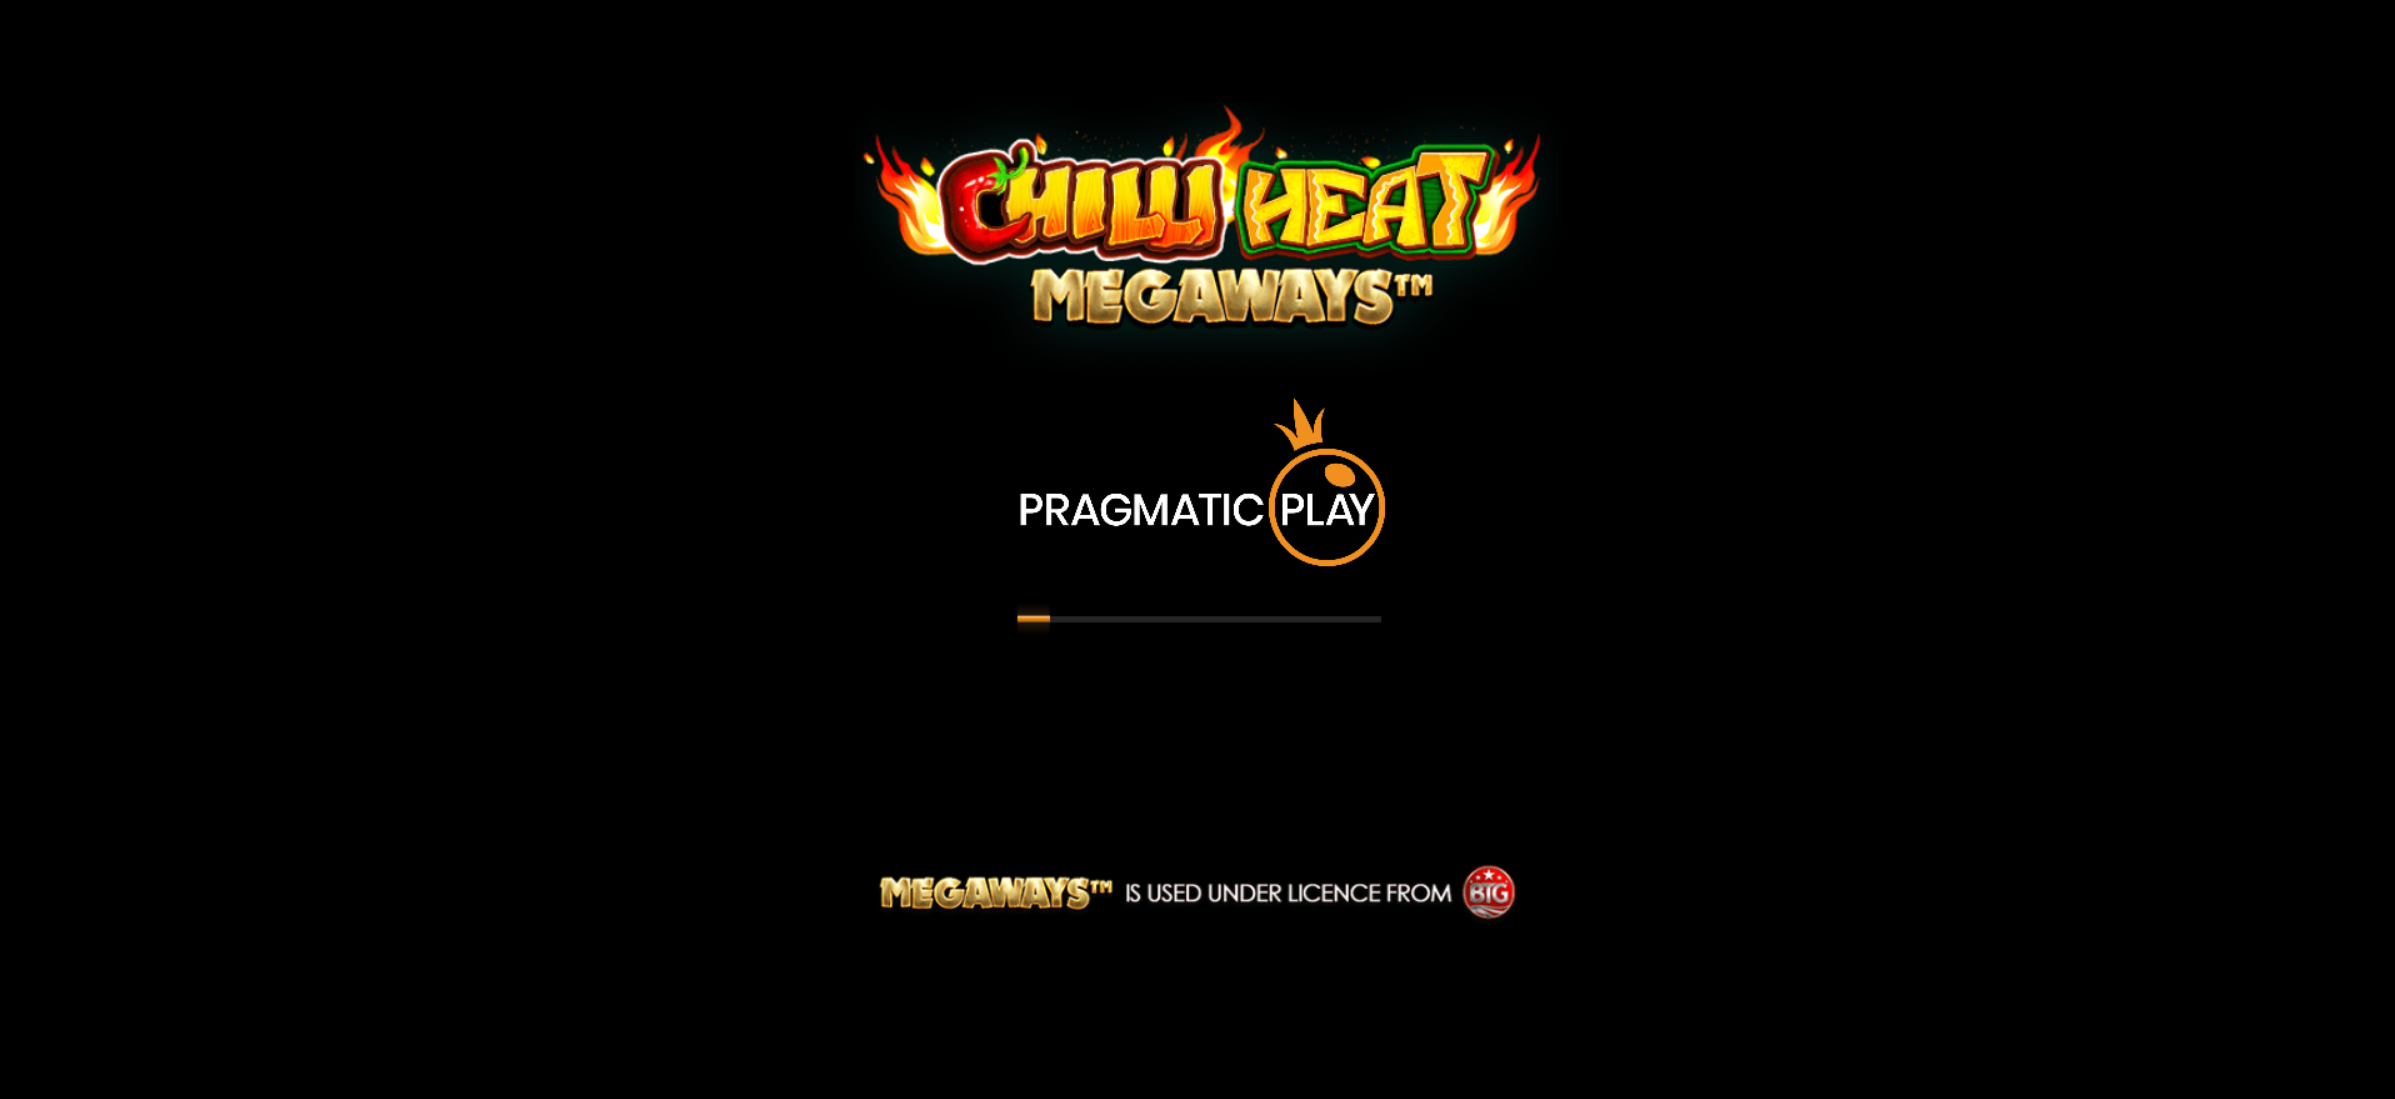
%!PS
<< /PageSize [2395 1099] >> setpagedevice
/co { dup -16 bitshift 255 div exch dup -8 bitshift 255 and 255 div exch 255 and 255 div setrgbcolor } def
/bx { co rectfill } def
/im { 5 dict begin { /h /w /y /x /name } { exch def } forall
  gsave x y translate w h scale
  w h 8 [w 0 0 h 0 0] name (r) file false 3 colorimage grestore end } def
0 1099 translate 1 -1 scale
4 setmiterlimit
0 0 2395 1099 16#000000 bx
(media/1.raw) 856 102 703 822 im
showpage
